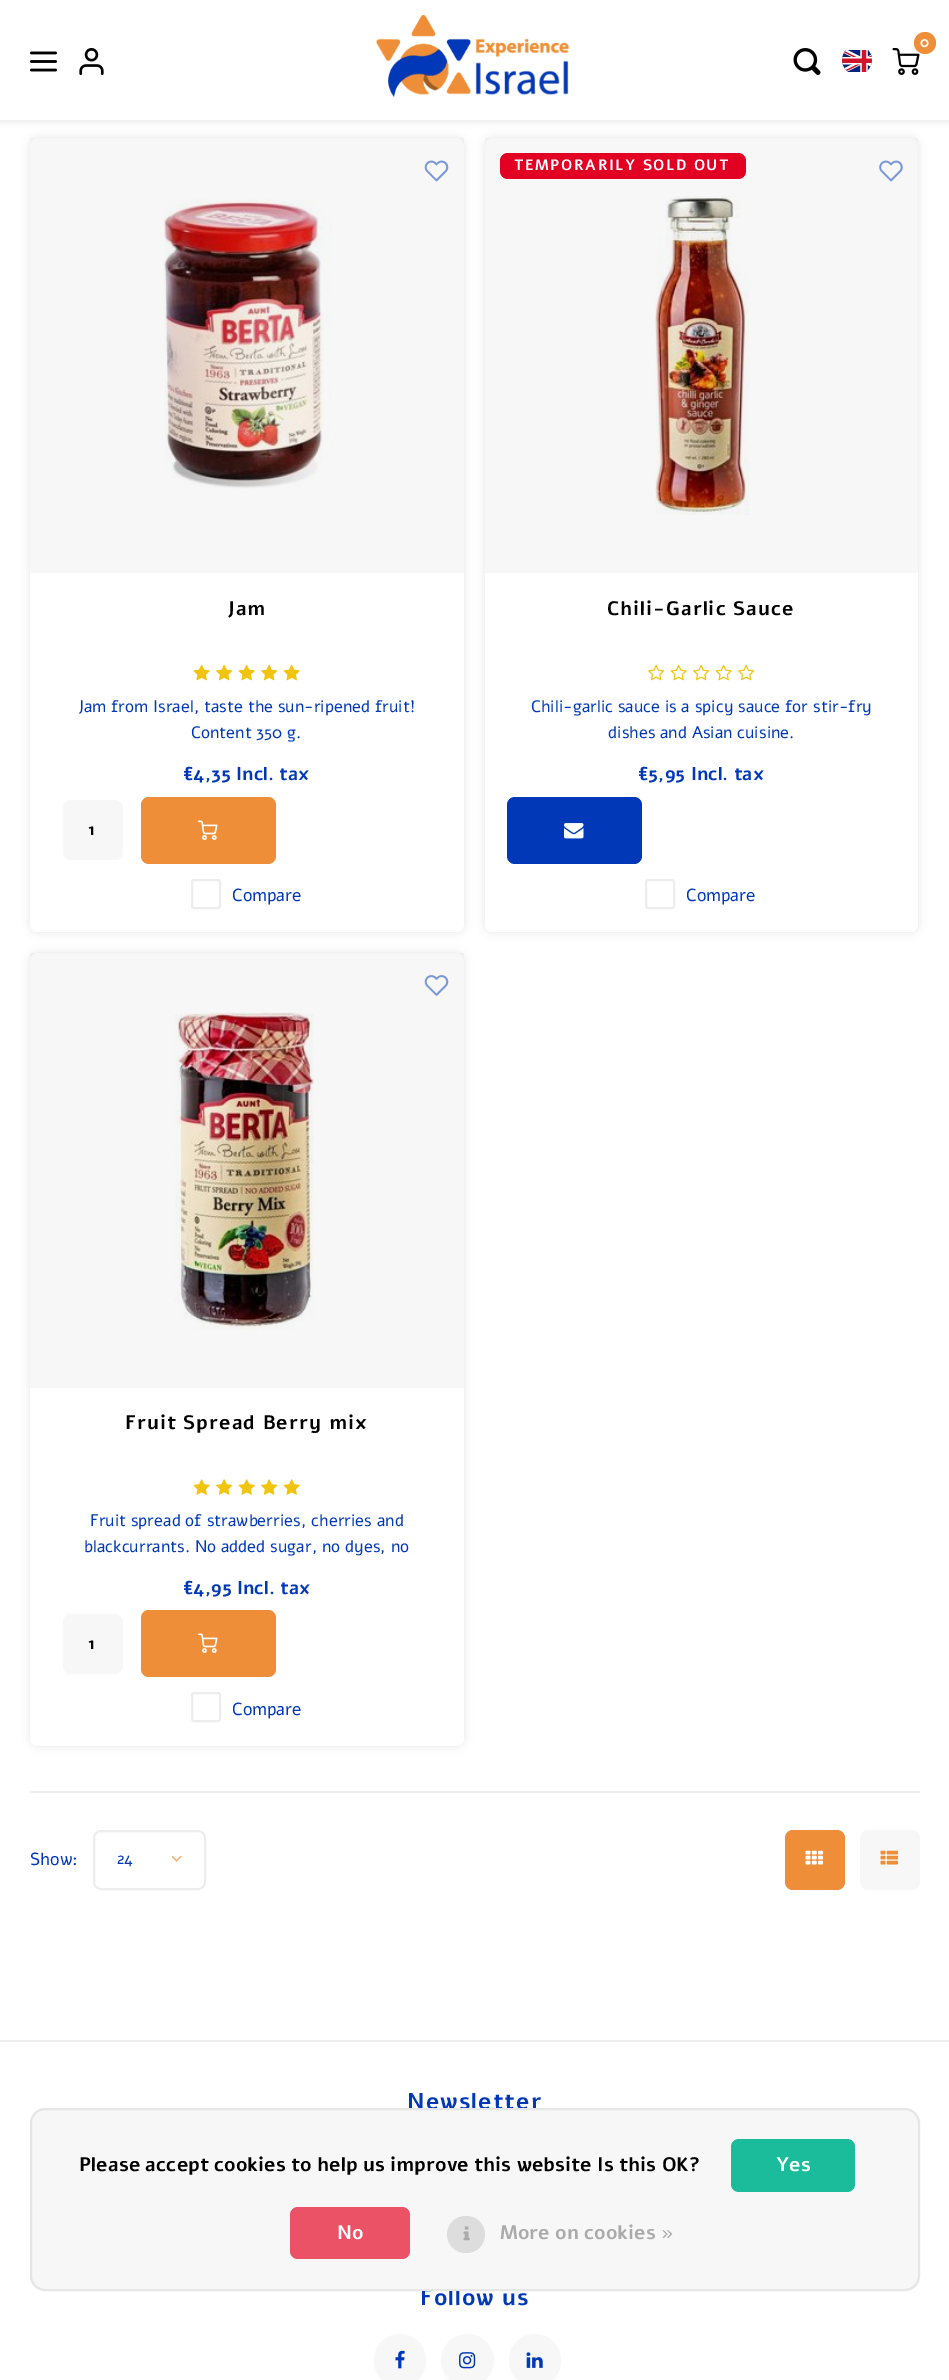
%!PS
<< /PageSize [949 2380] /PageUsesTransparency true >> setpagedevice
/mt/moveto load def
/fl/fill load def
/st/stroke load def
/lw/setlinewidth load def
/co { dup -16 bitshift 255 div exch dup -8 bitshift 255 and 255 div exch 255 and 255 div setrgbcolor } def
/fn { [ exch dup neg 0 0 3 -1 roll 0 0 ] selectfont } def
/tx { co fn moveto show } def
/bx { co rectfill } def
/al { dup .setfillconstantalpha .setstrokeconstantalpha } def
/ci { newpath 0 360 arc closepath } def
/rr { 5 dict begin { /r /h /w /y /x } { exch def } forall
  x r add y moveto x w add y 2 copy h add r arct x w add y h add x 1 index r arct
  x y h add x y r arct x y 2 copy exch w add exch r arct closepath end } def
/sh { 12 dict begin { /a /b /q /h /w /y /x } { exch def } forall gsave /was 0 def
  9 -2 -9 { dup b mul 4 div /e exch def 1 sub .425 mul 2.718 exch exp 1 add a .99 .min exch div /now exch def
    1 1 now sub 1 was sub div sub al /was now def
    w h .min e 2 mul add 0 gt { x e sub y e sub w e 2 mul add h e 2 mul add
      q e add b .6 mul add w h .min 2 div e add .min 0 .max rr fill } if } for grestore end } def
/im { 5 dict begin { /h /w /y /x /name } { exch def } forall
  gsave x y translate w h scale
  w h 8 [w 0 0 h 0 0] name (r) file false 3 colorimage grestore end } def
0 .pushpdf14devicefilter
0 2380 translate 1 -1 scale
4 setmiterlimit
0 0 949 2380 16#FFFFFF bx
16#000000 co
0 2 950 120 0 3 .08 sh
0 0 949 120 16#FFFFFF bx
(media/1.raw) 376 15 193 83 im
(media/2.raw) 892 48 28 27 im
16#EF8E38 co
925 43 11 ci fl
(media/3.raw) 793 48 28 27 im
(media/4.raw) 842 50 30 22 im
(media/5.raw) 30 51 27 21 im
(media/6.raw) 79 48 25 27 im
16#000000 co
30 138 434 794 8 4.5 .1 sh
16#FFFFFF co
30 138 434 794 8 rr fl
(media/7.raw) 163 199 169 290 im
0.03 al
30 138 434 435 16#000000 bx
1 al
(media/8.raw) 424 160 25 22 im
(media/9.raw) 193 664 17 17 im
(media/10.raw) 216 664 17 17 im
(media/9.raw) 238 664 17 17 im
(media/10.raw) 261 664 17 17 im
(media/9.raw) 283 664 17 17 im
16#F7F7F7 co
63 800 60 60 8 rr fl
16#EF8E38 co
141 797 135 67 8 rr fl
(media/11.raw) 198 820 20 20 im
16#EDEDED co
2 lw
192 880 28 28 2 rr st
16#000000 co
485 138 433 794 8 4.5 .1 sh
16#FFFFFF co
485 138 433 794 8 rr fl
(media/12.raw) 655 196 95 319 im
0.03 al
485 138 433 435 16#000000 bx
1 al
16#E20023 co
500 153 246 26 8 rr fl
(media/13.raw) 879 160 24 22 im
(media/14.raw) 648 664 17 17 im
(media/15.raw) 670 664 17 17 im
(media/14.raw) 693 664 17 17 im
(media/15.raw) 715 664 17 17 im
(media/14.raw) 738 664 17 17 im
16#0038B8 co
507 797 135 67 8 rr fl
(media/16.raw) 564 823 20 16 im
16#EDEDED co
646 880 28 28 2 rr st
16#000000 co
30 953 434 793 8 4.5 .1 sh
16#FFFFFF co
30 953 434 793 8 rr fl
(media/17.raw) 174 1012 140 318 im
0.03 al
30 953 434 435 16#000000 bx
1 al
(media/18.raw) 424 975 25 21 im
(media/19.raw) 193 1479 17 16 im
(media/20.raw) 216 1479 17 16 im
(media/19.raw) 238 1479 17 16 im
(media/20.raw) 261 1479 17 16 im
(media/19.raw) 283 1479 17 16 im
16#F7F7F7 co
63 1614 60 60 8 rr fl
16#EF8E38 co
141 1610 135 67 8 rr fl
(media/11.raw) 198 1633 20 20 im
16#EDEDED co
192 1693 28 28 2 rr st
30 1791 890 2 16#EDEDED bx
94 1831 111 58 7 rr st
(media/21.raw) 171 1855 11 7 im
16#EF8E38 co
785 1830 60 60 8 rr fl
(media/22.raw) 805 1850 19 15 im
16#F7F7F7 co
860 1830 60 60 8 rr fl
(media/23.raw) 880 1850 19 15 im
0 2040 949 2 16#EDEDED bx
16#F7F7F7 co
374 2334 52 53 26 rr fl
(media/24.raw) 395 2350 10 19 im
467.5 2360.5 26.5 ci fl
(media/25.raw) 459 2352 17 17 im
509 2334 52 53 26 rr fl
(media/26.raw) 526 2352 17 16 im
(0) 920 47 /Alef-Bold 15 16#FFFFFF tx
/Alef-Bold 19.5 fn
16#000000 co
227 615 mt 1 0 (Jam) ashow
(Jam from Israel, taste the sun-ripened fruit!) 78 712 /Alef-Regular 16.6 16#0038B8 tx
(Content 350 g.) 191 738 /Alef-Regular 16.6 16#0038B8 tx
(€4,35 Incl. tax) 183 780 /Alef-Bold 18.5 16#0038B8 tx
/Alef-Bold 16.6 fn
16#000000 co
88 835 mt 1 0 (1) ashow
(Compare) 232 901 /Alef-Regular 17.5 16#0038B8 tx
/Alef-Bold 15 fn
16#FFFFFF co
514 170 mt 1.5 0 (TEMPORARILY SOLD OUT) ashow
/Alef-Bold 19.5 fn
16#000000 co
607 615 mt 1 0 (Chili-Garlic Sauce) ashow
(Chili-garlic sauce is a spicy sauce for stir-fry) 531 712 /Alef-Regular 16.6 16#0038B8 tx
(dishes and Asian cuisine.) 608 738 /Alef-Regular 16.6 16#0038B8 tx
(€5,95 Incl. tax) 638 780 /Alef-Bold 18.5 16#0038B8 tx
(Compare) 686 901 /Alef-Regular 17.5 16#0038B8 tx
/Alef-Bold 19.5 fn
16#000000 co
125 1429 mt 1 0 (Fruit Spread Berry mix) ashow
(Fruit spread of strawberries, cherries and) 90 1526 /Alef-Regular 16.6 16#0038B8 tx
(blackcurrants. No added sugar, no dyes, no) 84 1552 /Alef-Regular 16.6 16#0038B8 tx
(€4,95 Incl. tax) 183 1594 /Alef-Bold 18.5 16#0038B8 tx
/Alef-Bold 16.6 fn
16#000000 co
88 1649 mt 1 0 (1) ashow
(Compare) 232 1715 /Alef-Regular 17.5 16#0038B8 tx
(Show:) 30 1865 /Alef-Regular 17.5 16#0038B8 tx
(24) 117 1864 /Alef-Regular 16 16#0038B8 tx
/Alef-Bold 22.75 fn
407 2109 mt 1.1 0 (Newsletter) ashow
420 2305 mt 1.1 0 (Follow us) ashow
16#F7F7F7 co
30 2108 890 183 15 rr fl
0.07 al
16#000000 co
31 2109 888 181 14 rr st
1 al
(Please accept cookies to help us improve this website Is this OK?) 79 2171 /Alef-Bold 19.5 16#000000 tx
16#1ABC9C co
731 2139 124 53 8 rr fl
(Yes) 776 2171 /Alef-Bold 19.5 16#FFFFFF tx
16#EB5265 co
290 2207 120 52 8 rr fl
(No) 337 2239 /Alef-Bold 19.5 16#FFFFFF tx
16#DDDDDD co
447 2216 38 37 18.5 rr fl
(media/27.raw) 463 2226 7 15 im
(More on cookies ») 500 2239 /Alef-Bold 19.5 16#AAAAAA tx
.poppdf14devicefilter showpage
